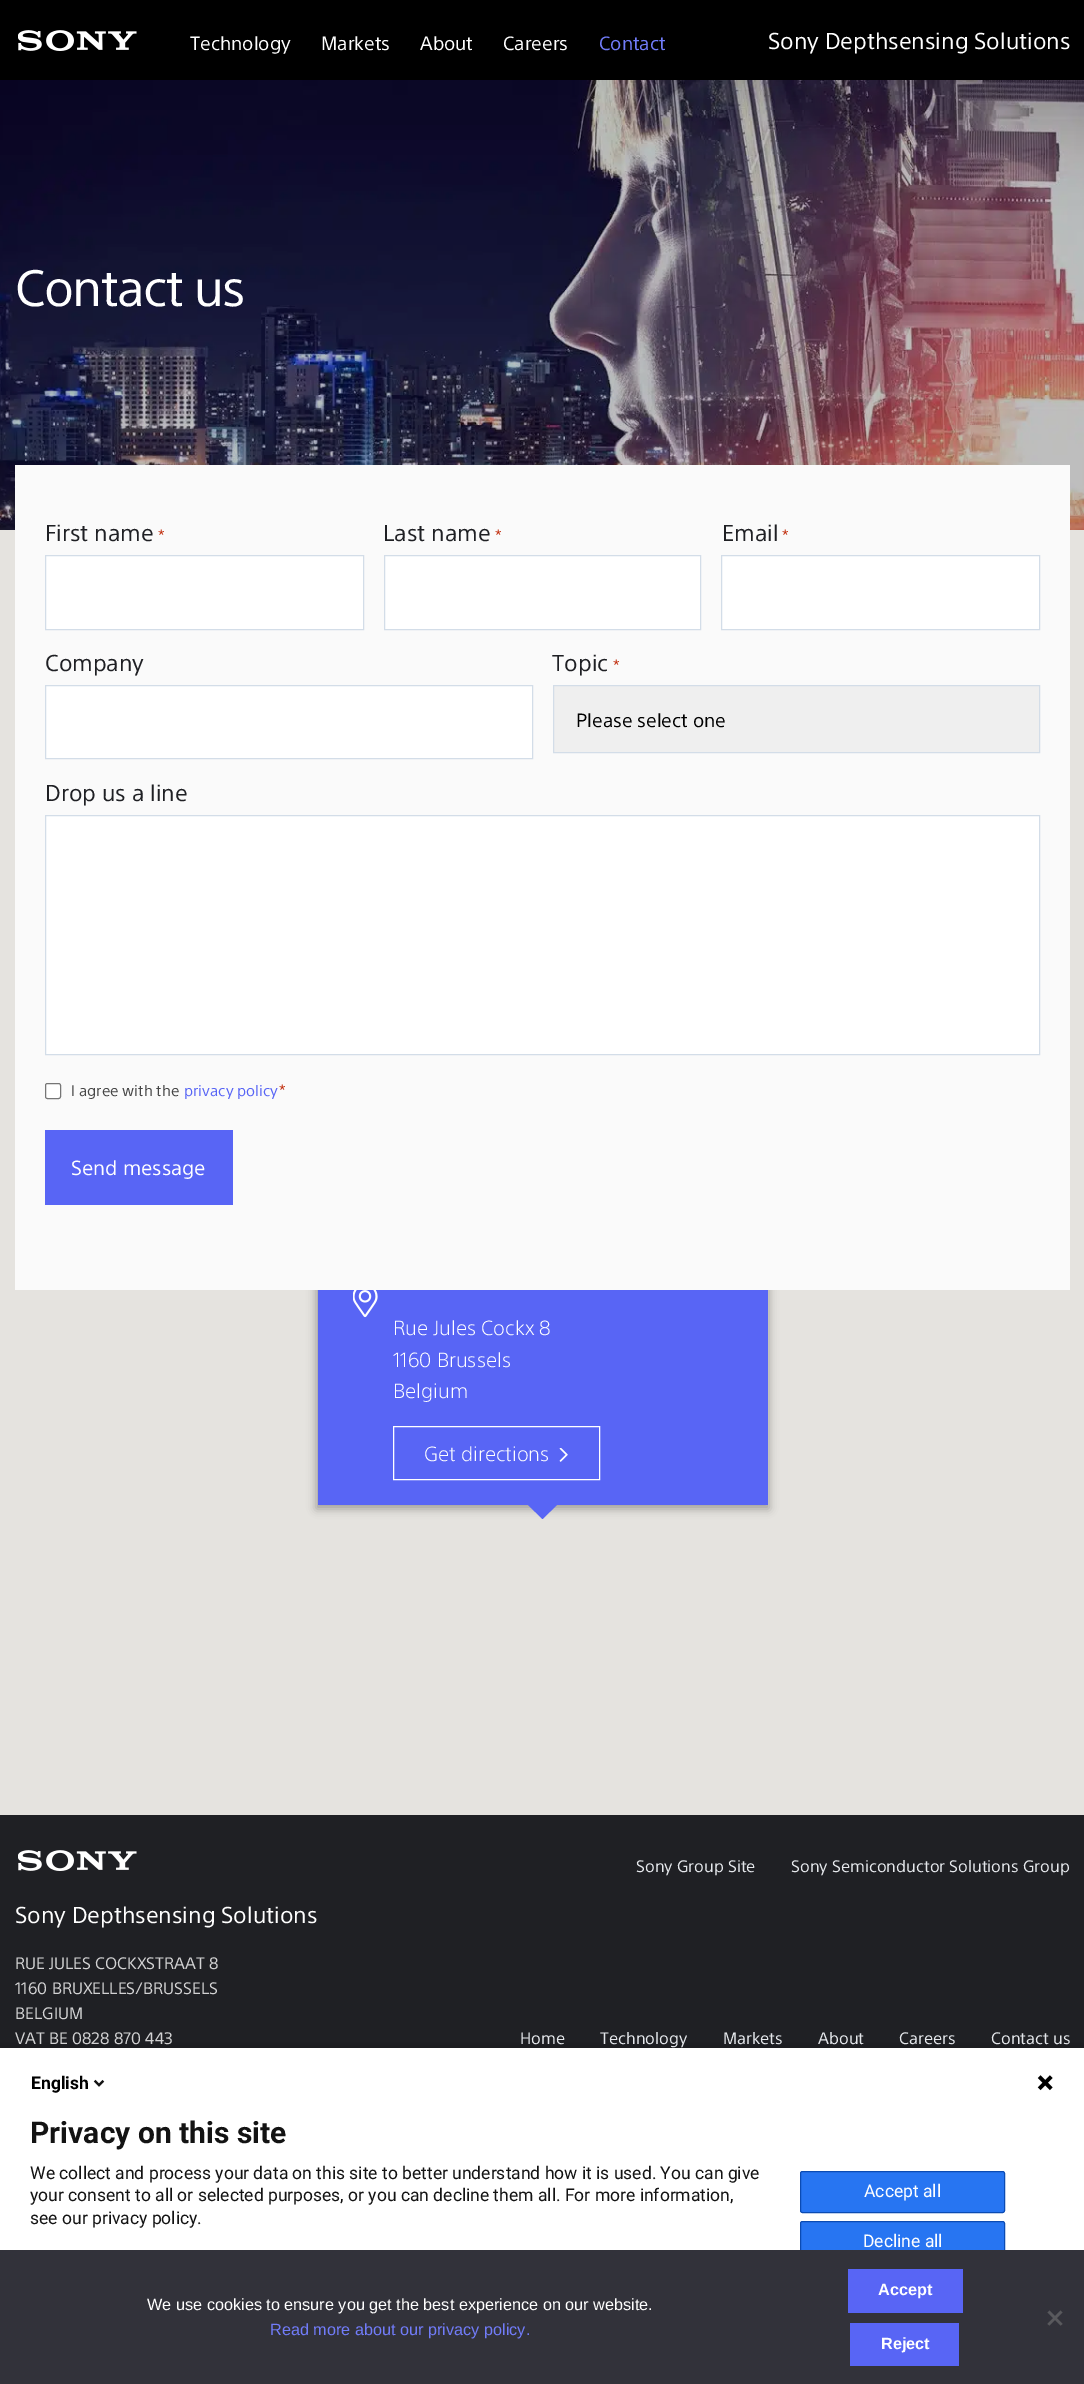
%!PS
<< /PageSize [1084 2384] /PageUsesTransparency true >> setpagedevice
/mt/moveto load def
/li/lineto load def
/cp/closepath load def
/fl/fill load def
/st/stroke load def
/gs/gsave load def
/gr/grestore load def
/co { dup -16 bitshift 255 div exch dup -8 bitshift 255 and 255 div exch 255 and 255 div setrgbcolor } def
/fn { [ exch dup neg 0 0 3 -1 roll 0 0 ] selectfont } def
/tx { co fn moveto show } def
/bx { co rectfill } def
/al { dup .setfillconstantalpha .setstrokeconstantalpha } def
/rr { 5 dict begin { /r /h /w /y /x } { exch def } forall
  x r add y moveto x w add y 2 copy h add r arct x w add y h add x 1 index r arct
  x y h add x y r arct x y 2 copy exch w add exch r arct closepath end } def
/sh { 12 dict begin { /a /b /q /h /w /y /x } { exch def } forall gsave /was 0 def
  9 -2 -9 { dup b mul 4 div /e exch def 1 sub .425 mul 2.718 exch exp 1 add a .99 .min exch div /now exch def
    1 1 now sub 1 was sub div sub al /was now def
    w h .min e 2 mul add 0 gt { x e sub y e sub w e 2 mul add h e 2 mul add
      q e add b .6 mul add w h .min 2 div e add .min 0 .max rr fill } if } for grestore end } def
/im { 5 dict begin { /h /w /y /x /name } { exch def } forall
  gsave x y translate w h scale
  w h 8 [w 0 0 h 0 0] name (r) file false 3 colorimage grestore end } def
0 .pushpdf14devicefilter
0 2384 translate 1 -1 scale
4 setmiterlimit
0 0 1084 2384 16#1F2024 bx
0 0 1084 80 16#000000 bx
(media/1.raw) 18 30 119 21 im
(media/2.raw) 0 80 1084 450 im
0 530 1084 1285 16#E5E3DF bx
16#000000 co
316 1248 453 261 0 4.5 .3 sh
15 465 1055 825 16#FAFAFA bx
16#FFFFFF co
45.5 555.5 mt 363.5 555.5 li 363.5 629.5 li 45.5 629.5 li cp gs fl gr
16#D3DDE8 co
st
16#FFFFFF co
384.5 555.5 mt 700.5 555.5 li 700.5 629.5 li 384.5 629.5 li cp gs fl gr
16#D3DDE8 co
st
16#FFFFFF co
721.5 555.5 mt 1039.5 555.5 li 1039.5 629.5 li 721.5 629.5 li cp gs fl gr
16#D3DDE8 co
st
16#FFFFFF co
45.5 685.5 mt 532.5 685.5 li 532.5 758.5 li 45.5 758.5 li cp gs fl gr
16#D3DDE8 co
st
16#EFEFEF co
553.5 685.5 mt 1039.5 685.5 li 1039.5 752.5 li 553.5 752.5 li cp gs fl gr
16#D3DDE8 co
st
16#FFFFFF co
45.5 815.5 mt 1039.5 815.5 li 1039.5 1054.5 li 45.5 1054.5 li cp gs fl gr
16#D3DDE8 co
st
16#FFFFFF co
45.5 1083.5 15 15 2 rr gs fl gr
16#767676 co
st
45 1130 188 75 16#5865F5 bx
318 1290 450 215 16#5865F5 bx
(media/3.raw) 353 1290 25 28 im
16#FFFFFF co
393.5 1426.5 206 53 rectstroke
(media/4.raw) 559 1448 9 14 im
16#5865F5 co
528 1504 mt 528 1505 li 542.5 1519 li 558 1504 li cp fl
(media/5.raw) 18 1850 119 21 im
16#000000 co
-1 2044 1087 340 0 3 .14 sh
0 2048 1084 202 16#FFFFFF bx
(media/6.raw) 93 2079 12 8 im
(media/7.raw) 1037 2075 16 16 im
16#2775F2 co
800.5 2171.5 204 41 2 rr gs fl gr
16#0B4BB3 co
st
16#2775F2 co
800.5 2221.5 204 41 2 rr gs fl gr
16#0B4BB3 co
st
0 2250 1084 134 16#32323A bx
848 2269 115 44 16#5865F5 bx
850 2323 109 43 16#5865F5 bx
16#59595D co
1060.5 2310.5 mt 1062.5 2312.5 li 1049.5 2325.5 li 1047.5 2324 li cp fl
1047.5 2312.5 mt 1049.5 2310.5 li 1062.5 2324 li 1060.5 2325.5 li cp fl
(Technology) 190 50 /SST-Regular 18.75 16#FFFFFF tx
(Markets) 321 50 /SST-Regular 18.75 16#FFFFFF tx
(About) 420 50 /SST-Regular 18.75 16#FFFFFF tx
(Careers) 503 50 /SST-Regular 18.75 16#FFFFFF tx
(Contact) 599 50 /SST-Regular 18.75 16#717CF9 tx
(Sony Depthsensing Solutions) 768 49 /SST-Regular 22.5 16#FFFFFF tx
/SST-Regular 50 fn
15 306 mt -1.5 0 (Contact us) ashow
(First name) 45 541 /SST-Regular 22.5 16#1F2024 tx
(*) 158 541 /SST-Regular 16 16#C02B0A tx
(Last name) 383 541 /SST-Regular 22.5 16#1F2024 tx
(*) 495 541 /SST-Regular 16 16#C02B0A tx
(Email) 722 541 /SST-Regular 22.5 16#1F2024 tx
(*) 782 541 /SST-Regular 16 16#C02B0A tx
(Company) 45 671 /SST-Regular 22.5 16#1F2024 tx
(Topic) 552 671 /SST-Regular 22.5 16#1F2024 tx
(*) 613 671 /SST-Regular 16 16#C02B0A tx
(Please select one) 576 727 /SST-Regular 18.75 16#000000 tx
(Drop us a line) 45 801 /SST-Regular 22.5 16#1F2024 tx
(I agree with the) 71 1096 /SST-Regular 15 16#464646 tx
(privacy policy) 184 1096 /SST-Regular 15 16#5865F5 tx
(*) 279 1096 /SST-Regular 16 16#C02B0A tx
(Send message) 71 1175 /SST-Regular 20 16#FFFFFF tx
(Rue Jules Cockx 8) 393 1335 /SST-Light 20 16#FFFFFF tx
(1160 Brussels) 393 1367 /SST-Light 20 16#FFFFFF tx
(Belgium) 393 1398 /SST-Light 20 16#FFFFFF tx
(Get directions) 424 1461 /SST-Light 20 16#FFFFFF tx
(Sony Depthsensing Solutions) 15 1923 /SST-Regular 22.5 16#FFFFFF tx
(RUE JULES COCKXSTRAAT 8) 15 1969 /SST-Regular 16.25 16#D2D2D3 tx
(1160 BRUXELLES/BRUSSELS) 15 1994 /SST-Regular 16.25 16#D2D2D3 tx
(BELGIUM) 15 2019 /SST-Regular 16.25 16#D2D2D3 tx
(VAT BE 0828 870 443) 15 2044 /SST-Regular 16.25 16#D2D2D3 tx
(Sony Group Site) 636 1872 /SST-Regular 16.25 16#E4E7EB tx
(Sony Semiconductor Solutions Group) 791 1872 /SST-Regular 16.25 16#E4E7EB tx
(Home) 520 2044 /SST-Regular 16.25 16#E4E7EB tx
(Technology) 600 2044 /SST-Regular 16.25 16#E4E7EB tx
(Markets) 723 2044 /SST-Regular 16.25 16#E4E7EB tx
(About) 818 2044 /SST-Regular 16.25 16#E4E7EB tx
(Careers) 899 2044 /SST-Regular 16.25 16#E4E7EB tx
(Contact us) 991 2044 /SST-Regular 16.25 16#E4E7EB tx
(English) 31 2089 /Roboto-Bold 17.5 16#000000 tx
(Privacy on this site) 30 2143 /Roboto-Bold 30 16#131313 tx
(We collect and process your data on this site to better understand how it is used. You can give) 30 2179 /Roboto-Regular 17.5 16#131313 tx
(your consent to all or selected purposes, or you can decline them all. For more information,) 30 2201 /Roboto-Regular 17.5 16#131313 tx
(see our privacy policy.) 30 2224 /Roboto-Regular 17.5 16#131313 tx
(Accept all) 864 2197 /Roboto-Regular 17.5 16#FFFFFF tx
(Decline all) 863 2247 /Roboto-Regular 17.5 16#FFFFFF tx
(We use cookies to ensure you get the best experience on our website.) 147 2310 /LiberationSans-Regular 16.25 16#FFFFFF tx
(Read more about our privacy policy.) 270 2335 /LiberationSans-Regular 16.25 16#717CF9 tx
(Accept) 878 2295 /LiberationSans-Bold 16.25 16#FFFFFF tx
(Reject) 881 2349 /LiberationSans-Bold 16.25 16#FFFFFF tx
.poppdf14devicefilter showpage
